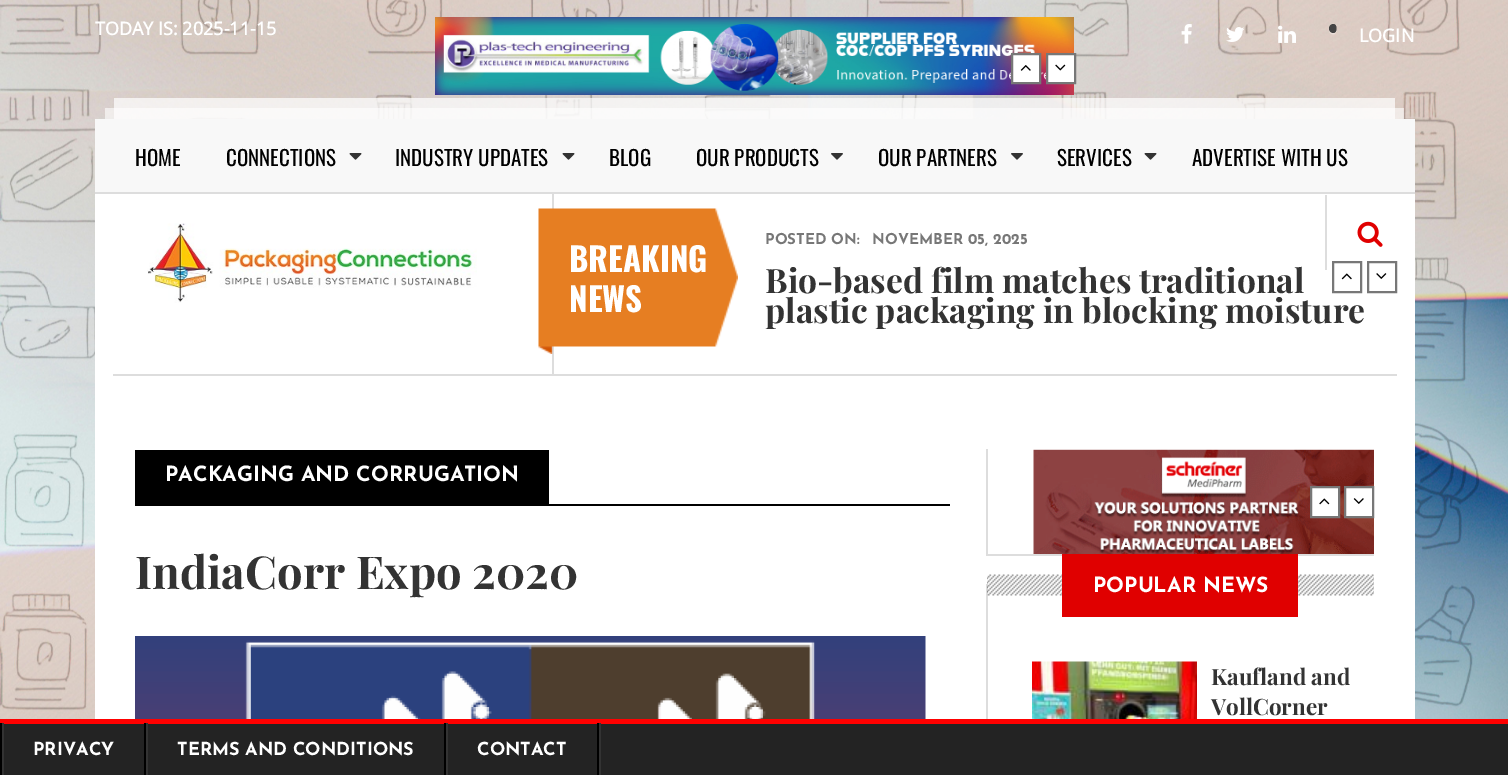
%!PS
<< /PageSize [1508 775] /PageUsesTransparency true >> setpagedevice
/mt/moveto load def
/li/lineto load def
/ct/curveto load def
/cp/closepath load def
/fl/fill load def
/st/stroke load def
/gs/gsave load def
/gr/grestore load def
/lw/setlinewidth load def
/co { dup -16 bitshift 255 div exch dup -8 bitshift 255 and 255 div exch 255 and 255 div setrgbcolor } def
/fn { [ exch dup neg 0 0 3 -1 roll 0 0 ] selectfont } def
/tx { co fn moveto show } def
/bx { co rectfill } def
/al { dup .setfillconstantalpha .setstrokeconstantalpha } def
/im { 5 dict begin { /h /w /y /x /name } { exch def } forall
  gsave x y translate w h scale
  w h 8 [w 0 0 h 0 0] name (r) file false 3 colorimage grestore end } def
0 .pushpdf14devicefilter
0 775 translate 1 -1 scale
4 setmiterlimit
0 0 1508 775 16#FFFFFF bx
(media/1.raw) 0 0 1508 719 im
(media/2.raw) 435 17 639 78 im
1012 54 mt 1040 54 li 1040 83 li 1012 83 li cp gs fl gr
16#777777 co
2 lw
st
(media/3.raw) 1020 65 11 6 im
16#FFFFFF co
1047 54 mt 1075 54 li 1075 83 li 1047 83 li cp gs fl gr
16#777777 co
st
(media/4.raw) 1055 64 11 7 im
(media/5.raw) 1181 24 11 20 im
(media/6.raw) 1226 27 18 15 im
(media/7.raw) 1278 25 18 18 im
0.35 al
16#FFFFFF co
1329 29 mt 1328 35.5 1337.5 37 1336.5 29 ct 1336 34.5 1330 34 1329 29 ct cp fl
1 al
16#444444 co
1333.5 24 mt 1337.5 24 1337.5 33 1333.5 33 ct 1327.5 33 1327.5 24 1333.5 24 ct cp fl
95 194 1320 525 16#FFFFFF bx
0.6 al
105 108 1299 11 16#FFFFFF bx
0.7 al
114 98 1281 21 16#FFFFFF bx
1 al
95 119 1320 73 16#F8F8F8 bx
95 192 1320 2 16#DDDDDD bx
(media/8.raw) 349 153 13 7 im
(media/8.raw) 562 153 13 7 im
(media/9.raw) 831 153 12 7 im
(media/9.raw) 1011 153 12 7 im
(media/8.raw) 1144 153 13 7 im
1325 195 2 75 16#DDDDDD bx
(media/10.raw) 1357 221 26 26 im
113 374 1284 2 16#DDDDDD bx
(media/11.raw) 147 223 330 80 im
552 194 2 180 16#DDDDDD bx
(media/12.raw) 538 208 200 146 im
16#777777 co
1333 262 28 30 rectstroke
(media/13.raw) 1341 273 11 7 im
1368 262 28 30 rectstroke
(media/14.raw) 1376 273 11 6 im
135 504 815 2 16#000000 bx
135 450 414 54 16#000000 bx
(media/15.raw) 135 636 791 83 im
986 554 388 2 16#DDDDDD bx
986 449 2 106 16#DDDDDD bx
(media/16.raw) 1033 449 341 105 im
16#FFFFFF co
1311 487 mt 1339 487 li 1339 517 li 1311 517 li cp gs fl gr
16#777777 co
st
(media/17.raw) 1319 498 11 7 im
16#FFFFFF co
1345 487 mt 1373 487 li 1373 517 li 1345 517 li cp gs fl gr
16#777777 co
st
(media/18.raw) 1353 498 11 6 im
986 584 2 135 16#DDDDDD bx
(media/19.raw) 987 574 387 22 im
1062 554 236 63 16#E00000 bx
(media/20.raw) 1032 661 165 58 im
4 724 1504 51 16#232323 bx
0 719 1508 5 16#FF0000 bx
599 723 2 52 16#333333 bx
0 723 2 52 16#000000 bx
144 723 2 52 16#000000 bx
2 723 2 52 16#333333 bx
444 723 2 52 16#000000 bx
146 723 2 52 16#333333 bx
597 723 2 52 16#000000 bx
446 723 2 52 16#333333 bx
(TODAY IS: 2025-11-15) 95 35 /OpenSans-Bold 18 16#FFFFFF tx
(LOGIN) 1359 42 /OpenSans-Bold 18 16#FFFFFF tx
(HOME) 135 166 /Oswald-Regular 21 16#000000 tx
(CONNECTIONS) 226 166 /Oswald-Regular 21 16#000000 tx
(INDUSTRY UPDATES) 395 166 /Oswald-Regular 21 16#000000 tx
(BLOG) 609 166 /Oswald-Regular 21 16#000000 tx
(OUR PRODUCTS) 696 166 /Oswald-Regular 21 16#000000 tx
(OUR PARTNERS) 878 166 /Oswald-Regular 21 16#000000 tx
(SERVICES) 1057 166 /Oswald-Regular 21 16#000000 tx
(ADVERTISE WITH US) 1192 166 /Oswald-Regular 21 16#000000 tx
(BREAKING) 569 272 /Oswald-Bold 33 16#FFFFFF tx
(NEWS) 569 312 /Oswald-Bold 33 16#FFFFFF tx
(POSTED ON:) 765 244 /JosefinSans-Bold 15 16#777777 tx
(NOVEMBER 05, 2025) 872 244 /JosefinSans-Bold 15 16#777777 tx
(Bio-based film matches traditional) 765 293 /PlayfairDisplay-Bold 33.6 16#333333 tx
gs
764 224 633 105 rectclip
(plastic packaging in blocking moisture) 765 323 /PlayfairDisplay-Bold 33.6 16#333333 tx
gr
(PACKAGING AND CORRUGATION) 165 481 /JosefinSans-Bold 21 16#FFFFFF tx
(IndiaCorr Expo 2020) 135 589 /PlayfairDisplay-Bold 45.4 16#333333 tx
(POPULAR NEWS) 1093 592 /JosefinSans-Bold 21 16#FFFFFF tx
(Kaufland and) 1211 685 /PlayfairDisplay-Bold 22.5 16#333333 tx
(VollCorner) 1211 715 /PlayfairDisplay-Bold 22.5 16#333333 tx
(PRIVACY) 33 755 /JosefinSans-Bold 18 16#FFFFFF tx
(TERMS AND CONDITIONS) 177 755 /JosefinSans-Bold 18 16#FFFFFF tx
(CONTACT) 477 755 /JosefinSans-Bold 18 16#FFFFFF tx
.poppdf14devicefilter showpage
